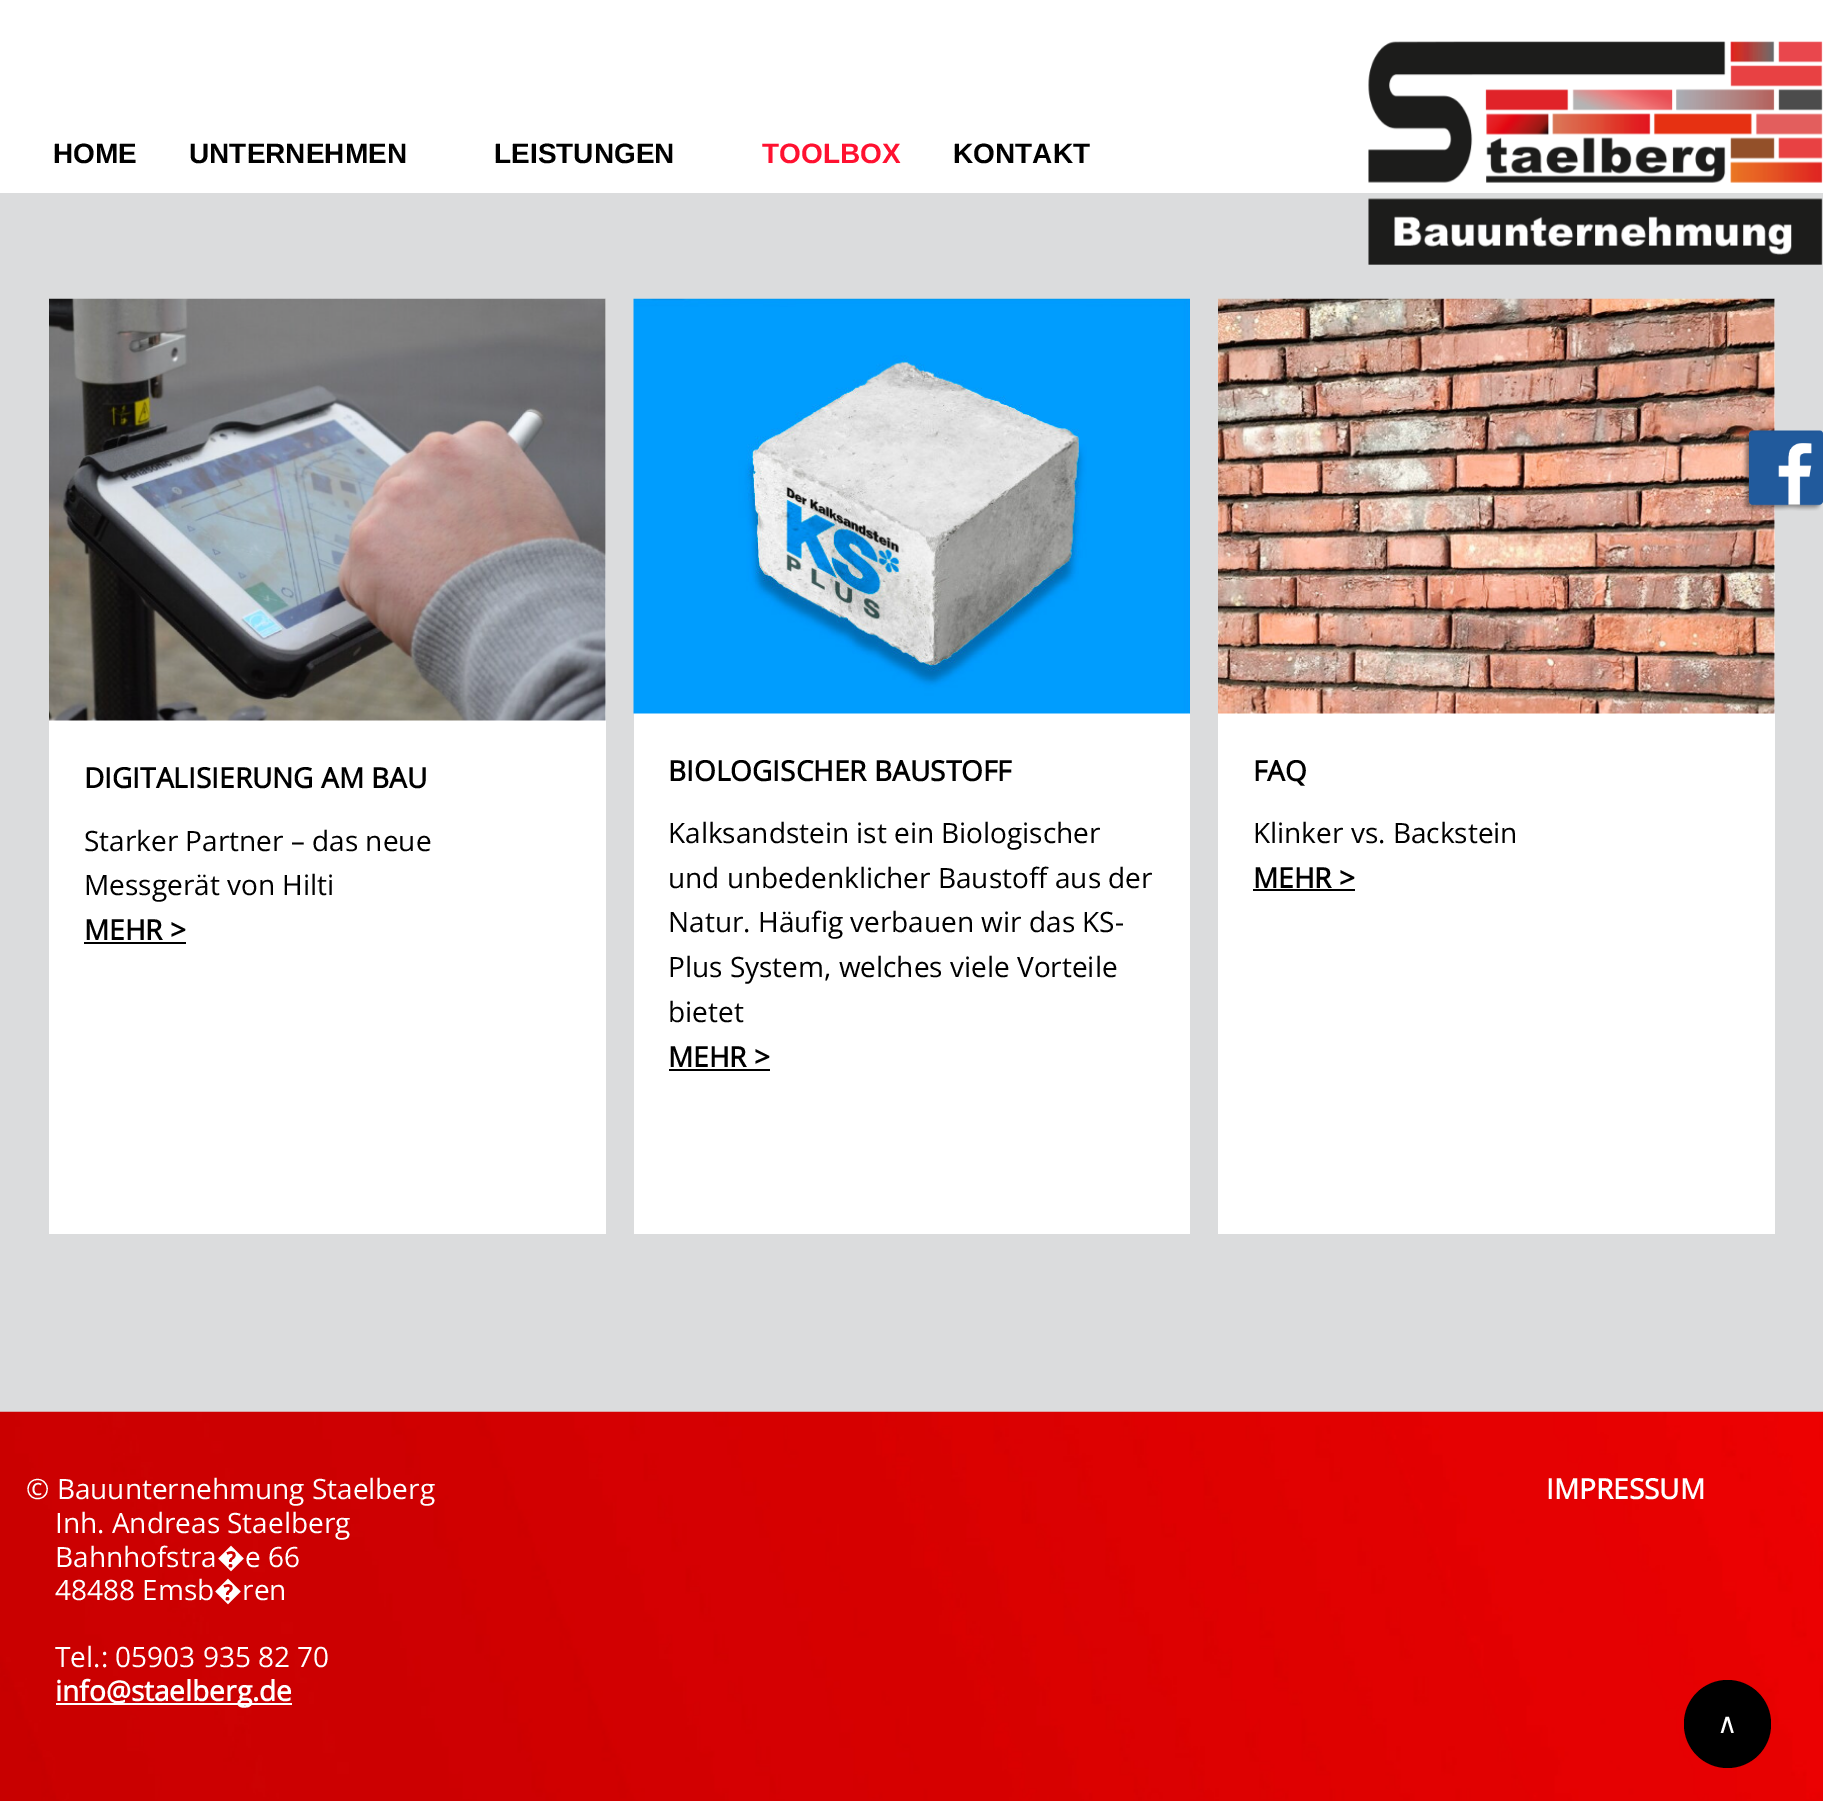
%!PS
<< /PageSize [1823 1801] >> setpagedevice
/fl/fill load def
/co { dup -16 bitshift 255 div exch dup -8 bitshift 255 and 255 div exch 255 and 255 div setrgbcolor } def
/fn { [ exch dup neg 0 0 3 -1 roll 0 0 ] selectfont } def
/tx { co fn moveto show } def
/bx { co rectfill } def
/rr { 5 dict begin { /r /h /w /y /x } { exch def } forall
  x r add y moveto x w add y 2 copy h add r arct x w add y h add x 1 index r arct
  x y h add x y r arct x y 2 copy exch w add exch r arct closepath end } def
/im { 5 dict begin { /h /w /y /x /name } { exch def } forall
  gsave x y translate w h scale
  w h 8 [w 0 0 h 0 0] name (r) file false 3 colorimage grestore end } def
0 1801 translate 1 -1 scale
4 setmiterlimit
0 0 1823 1801 16#DBDCDD bx
0 0 1823 193 16#FFFFFF bx
(media/1.raw) 1368 41 455 224 im
1218 299 557 935 16#FFFFFF bx
(media/5.raw) 1218 298 557 416 im
(media/2.raw) 1742 430 81 81 im
49 299 557 935 16#FFFFFF bx
(media/3.raw) 49 298 557 423 im
84 942 102 2 16#000000 bx
634 713 556 521 16#FFFFFF bx
(media/4.raw) 633 298 557 416 im
669 1069 101 2 16#000000 bx
1253 889 102 2 16#000000 bx
(media/6.raw) 0 1411 1823 390 im
56 1703 236 2 16#FFFFFF bx
16#000000 co
1684 1680 87 88 43.5 rr fl
(HOME) 53 163 /LiberationSans-Bold 28 16#000000 tx
(UNTERNEHMEN) 189 163 /LiberationSans-Bold 28 16#000000 tx
(LEISTUNGEN) 494 163 /LiberationSans-Bold 28 16#000000 tx
(TOOLBOX) 762 163 /LiberationSans-Bold 28 16#FF1130 tx
(KONTAKT) 953 163 /LiberationSans-Bold 28 16#000000 tx
(DIGITALISIERUNG AM BAU) 84 788 /OpenSans-Bold 28 16#000000 tx
(Starker Partner – das neue) 84 851 /OpenSans-Regular 28 16#000000 tx
(Messgerät von Hilti) 84 895 /OpenSans-Regular 28 16#000000 tx
(MEHR >) 84 940 /OpenSans-Bold 28 16#000000 tx
(BIOLOGISCHER BAUSTOFF) 668 781 /OpenSans-Bold 28 16#000000 tx
(Kalksandstein ist ein Biologischer) 668 843 /OpenSans-Regular 28 16#000000 tx
(und unbedenklicher Baustoff aus der) 668 888 /OpenSans-Regular 28 16#000000 tx
(Natur. Häufig verbauen wir das KS-) 668 932 /OpenSans-Regular 28 16#000000 tx
(Plus System, welches viele Vorteile) 668 977 /OpenSans-Regular 28 16#000000 tx
(bietet) 668 1022 /OpenSans-Regular 28 16#000000 tx
(MEHR >) 668 1067 /OpenSans-Bold 28 16#000000 tx
(FAQ) 1253 781 /OpenSans-Bold 28 16#000000 tx
(Klinker vs. Backstein) 1253 843 /OpenSans-Regular 28 16#000000 tx
(MEHR >) 1253 888 /OpenSans-Bold 28 16#000000 tx
(© Bauunternehmung Staelberg) 26 1499 /OpenSans-Regular 28 16#FFFFFF tx
(Inh. Andreas Staelberg) 55 1533 /OpenSans-Regular 28 16#FFFFFF tx
(Bahnhofstra�e 66) 55 1567 /OpenSans-Regular 28 16#FFFFFF tx
(48488 Emsb�ren) 55 1600 /OpenSans-Regular 28 16#FFFFFF tx
(Tel.: 05903 935 82 70) 55 1667 /OpenSans-Regular 28 16#FFFFFF tx
(info@staelberg.de) 55 1701 /OpenSans-Bold 28 16#FFFFFF tx
(IMPRESSUM) 1546 1499 /OpenSans-Bold 28 16#FFFFFF tx
(∧) 1717 1733 /DejaVuSans-Regular 28 16#FFFFFF tx
showpage
